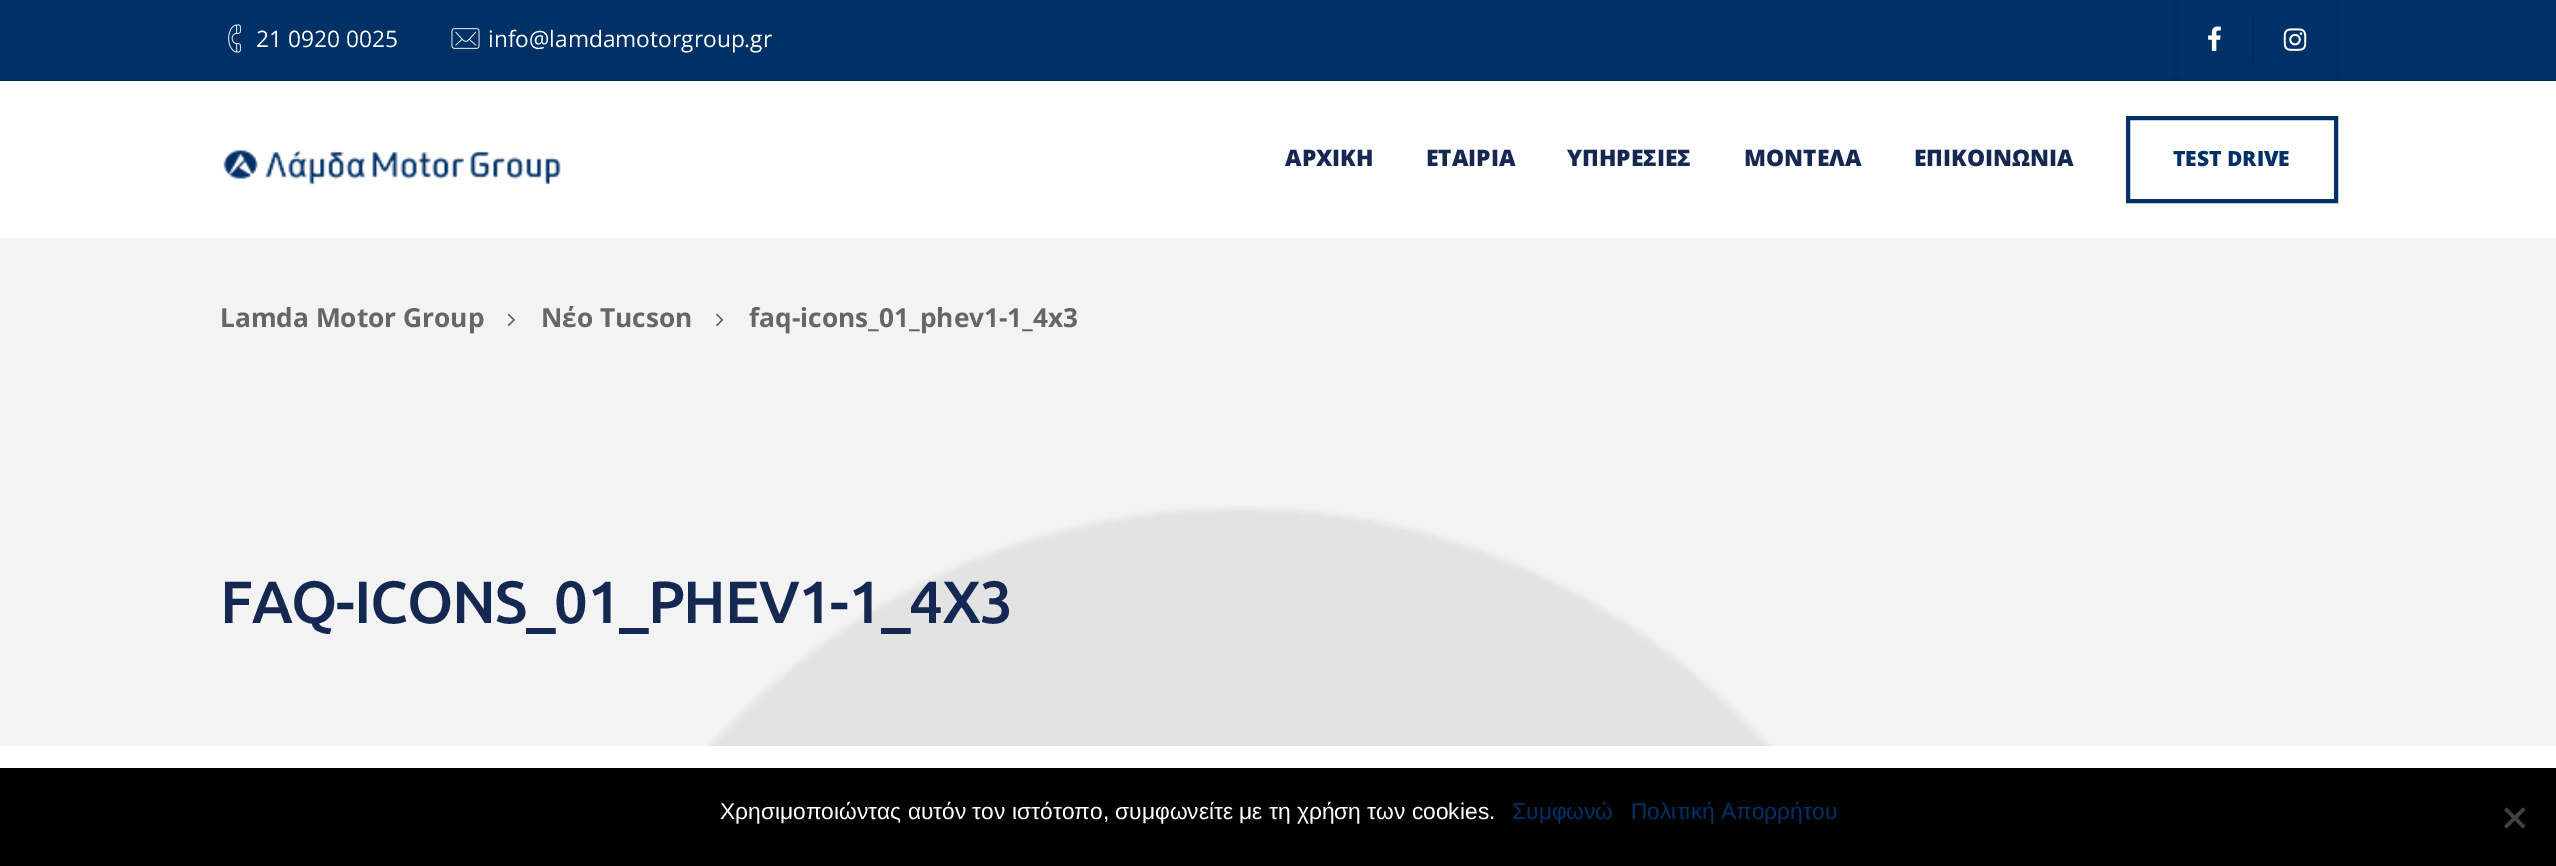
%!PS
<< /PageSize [2556 866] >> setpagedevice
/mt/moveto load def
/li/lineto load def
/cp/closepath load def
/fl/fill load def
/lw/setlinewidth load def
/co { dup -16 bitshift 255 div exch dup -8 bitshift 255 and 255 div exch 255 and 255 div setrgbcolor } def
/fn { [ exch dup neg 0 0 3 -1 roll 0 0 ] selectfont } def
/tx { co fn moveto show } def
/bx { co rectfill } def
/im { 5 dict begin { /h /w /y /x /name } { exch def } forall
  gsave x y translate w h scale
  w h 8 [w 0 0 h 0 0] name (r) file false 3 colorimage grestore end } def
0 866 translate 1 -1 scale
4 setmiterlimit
0 0 2556 866 16#FFFFFF bx
0 0 2556 79 16#003166 bx
0 79 2556 2 16#002C5C bx
(media/1.raw) 228 24 13 29 im
(media/2.raw) 451 28 29 21 im
2336 0 2 79 16#002C5C bx
2175 0 2 79 16#002C5C bx
2252 16 2 47 16#002C5C bx
(media/3.raw) 2208 26 13 25 im
(media/4.raw) 2283 28 24 23 im
(media/5.raw) 223 150 338 35 im
16#003166 co
4 lw
2128 118 208 83 rectstroke
0 238 2556 508 16#F3F3F3 bx
(media/6.raw) 507 313 8 14 im
(media/7.raw) 716 313 8 14 im
(media/8.raw) 708 506 1063 240 im
0 768 2556 98 16#000000 bx
16#404040 co
2523 807.5 mt 2525.5 810 li 2506.5 828.5 li 2504 826 li cp fl
2504 810 mt 2506.5 807.5 li 2525.5 826 li 2523 828.5 li cp fl
(21 0920 0025) 256 47 /OpenSans-Regular 22.75 16#FFFFFF tx
(info@lamdamotorgroup.gr) 488 47 /OpenSans-Regular 22.75 16#FFFFFF tx
(ΑΡΧΙΚΗ) 1285 166 /OpenSans-ExtraBold 22.75 16#152851 tx
(ΕΤΑΙΡΙΑ) 1426 166 /OpenSans-ExtraBold 22.75 16#152851 tx
(ΥΠΗΡΕΣΙΕΣ) 1567 166 /OpenSans-ExtraBold 22.75 16#152851 tx
(ΜΟΝΤΕΛΑ) 1744 166 /OpenSans-ExtraBold 22.75 16#152851 tx
(ΕΠΙΚΟΙΝΩΝΙΑ) 1914 166 /OpenSans-ExtraBold 22.75 16#152851 tx
(TEST DRIVE) 2173 166 /OpenSans-ExtraBold 21 16#003166 tx
(Lamda Motor Group) 220 327 /OpenSans-Bold 26.25 16#666666 tx
(Νέο Tucson) 541 327 /OpenSans-Bold 26.25 16#666666 tx
(faq-icons_01_phev1-1_4x3) 749 327 /OpenSans-Bold 26.25 16#666666 tx
/Ubuntu-Medium 59.5 fn
16#152851 co
220 623 mt -1.25 0 (FAQ-ICONS_01_PHEV1-1_4X3) ashow
(Χρησιμοποιώντας αυτόν τον ιστότοπο, συμφωνείτε με τη χρήση των cookies.) 720 819 /LiberationSans-Regular 22.75 16#FFFFFF tx
(Συμφωνώ) 1512 819 /LiberationSans-Regular 22.75 16#003166 tx
(Πολιτική Απορρήτου) 1631 819 /LiberationSans-Regular 22.75 16#003166 tx
showpage
